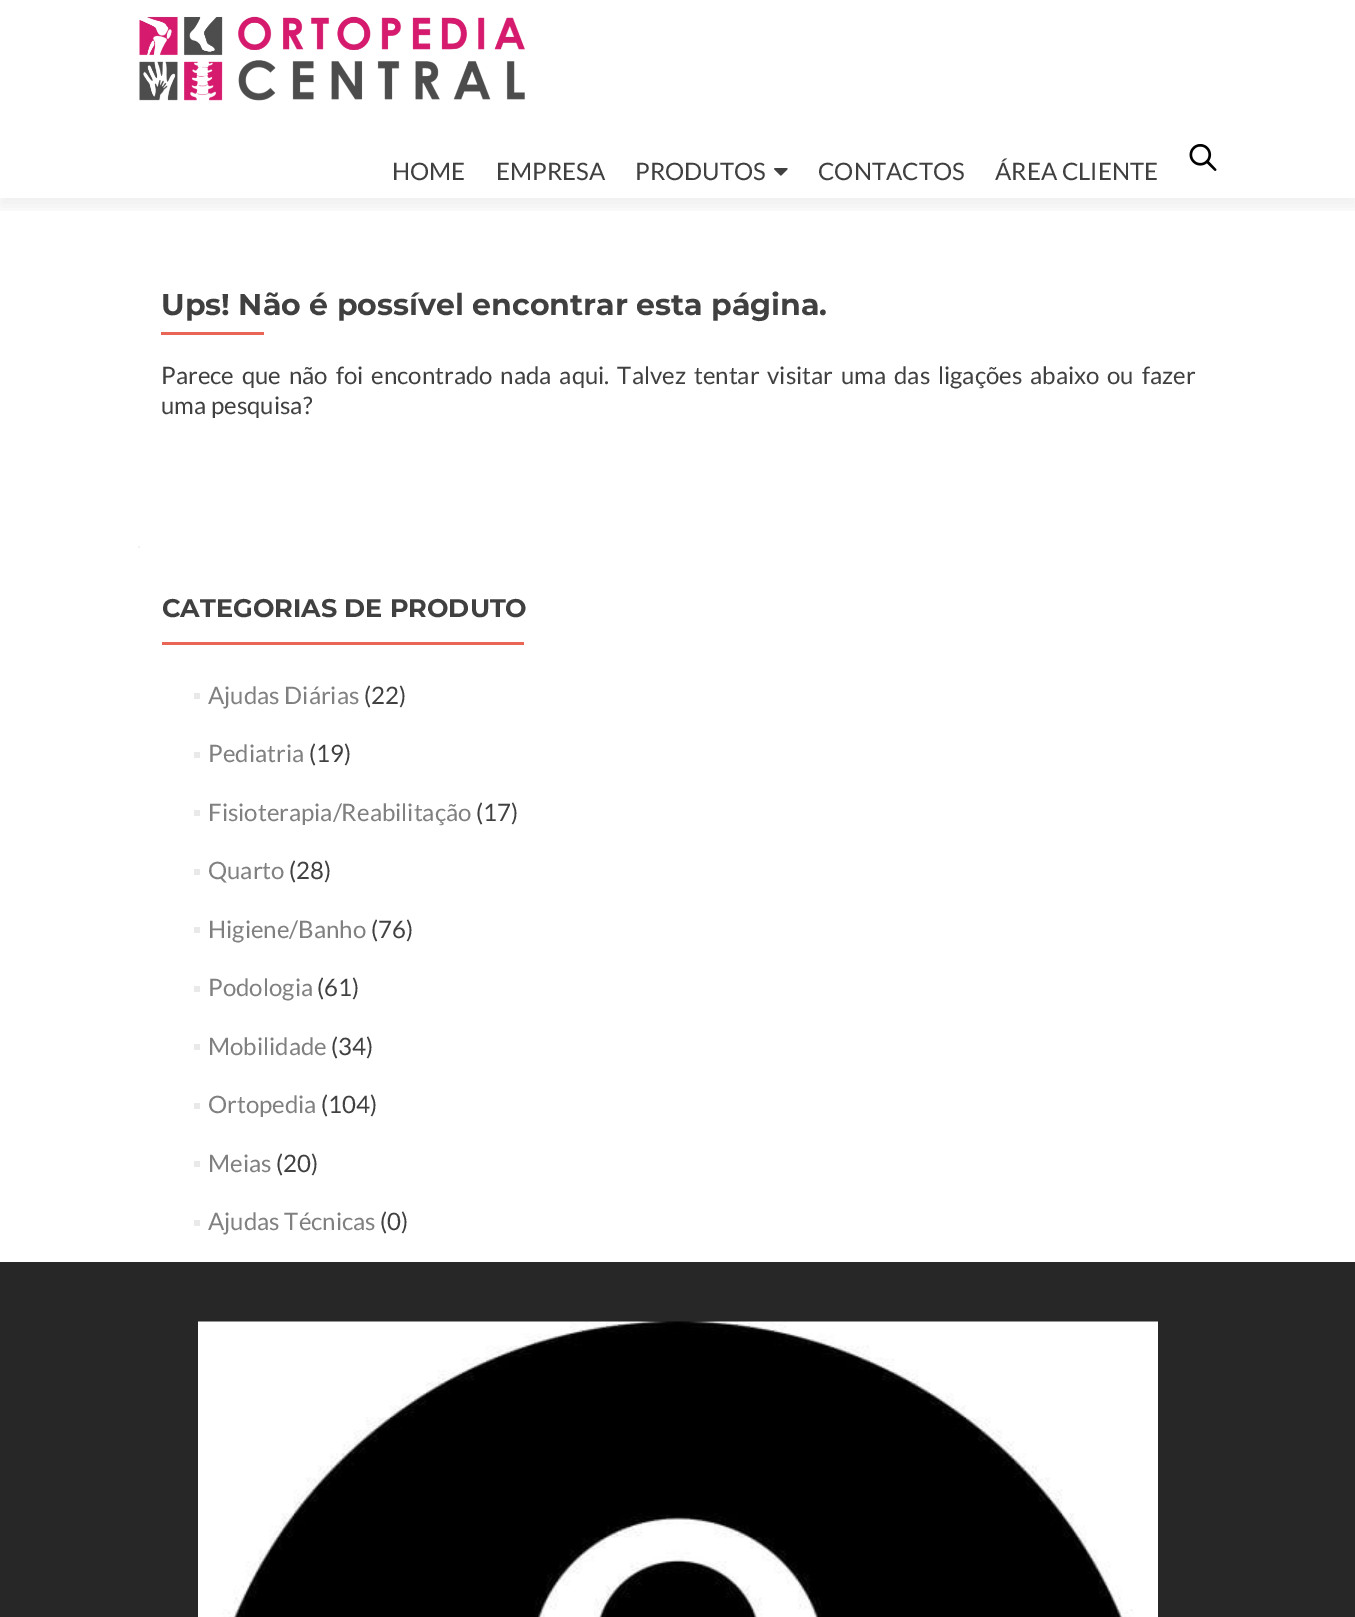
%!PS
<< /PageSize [1355 1617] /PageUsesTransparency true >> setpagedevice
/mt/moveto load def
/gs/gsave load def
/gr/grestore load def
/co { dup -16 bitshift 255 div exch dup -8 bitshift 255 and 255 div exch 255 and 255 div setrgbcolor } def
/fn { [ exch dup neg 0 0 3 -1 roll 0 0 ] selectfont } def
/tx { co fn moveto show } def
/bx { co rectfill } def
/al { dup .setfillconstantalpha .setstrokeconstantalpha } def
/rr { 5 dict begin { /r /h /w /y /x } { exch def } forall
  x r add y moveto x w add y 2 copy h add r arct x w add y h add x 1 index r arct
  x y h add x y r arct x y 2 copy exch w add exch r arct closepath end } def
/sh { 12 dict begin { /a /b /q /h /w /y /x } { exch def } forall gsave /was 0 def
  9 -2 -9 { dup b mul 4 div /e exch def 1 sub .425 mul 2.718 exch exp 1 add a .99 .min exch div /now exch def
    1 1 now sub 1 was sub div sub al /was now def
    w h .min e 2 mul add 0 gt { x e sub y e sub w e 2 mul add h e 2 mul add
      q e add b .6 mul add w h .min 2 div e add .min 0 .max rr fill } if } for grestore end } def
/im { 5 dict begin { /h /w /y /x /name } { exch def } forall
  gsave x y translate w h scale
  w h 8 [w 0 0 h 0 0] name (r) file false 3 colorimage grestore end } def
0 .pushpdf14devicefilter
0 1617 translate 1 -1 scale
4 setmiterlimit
0 0 1355 1617 16#FFFFFF bx
gs
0 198 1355 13 rectclip
16#323232 co
0 8 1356 198 0 8 .08 sh
gr
(media/1.raw) 139 16 386 85 im
(media/2.raw) 774 168 14 8 im
(media/3.raw) 1189 144 28 27 im
161 332 103 3 16#E96656 bx
138 546 2 2 16#F2F2F2 bx
162 642 362 3 16#E96656 bx
194 693 6 6 16#E9E9E9 bx
194 752 6 6 16#E9E9E9 bx
194 810 6 6 16#E9E9E9 bx
194 869 6 6 16#E9E9E9 bx
194 927 6 6 16#E9E9E9 bx
194 986 6 6 16#E9E9E9 bx
194 1044 6 6 16#E9E9E9 bx
194 1103 6 6 16#E9E9E9 bx
194 1161 6 6 16#E9E9E9 bx
194 1220 6 6 16#E9E9E9 bx
0 1262 1355 355 16#272727 bx
(media/4.raw) 198 1321 960 296 im
(HOME) 392 180 /Lato-Regular 24 16#404040 tx
(EMPRESA) 496 180 /Lato-Regular 24 16#404040 tx
(PRODUTOS) 635 180 /Lato-Regular 24 16#404040 tx
(CONTACTOS) 818 180 /Lato-Regular 24 16#404040 tx
(ÁREA CLIENTE) 995 180 /Lato-Regular 24 16#404040 tx
(Ups! Não é possível encontrar esta página.) 161 315 /Montserrat-Bold 30 16#404040 tx
/Lato-Regular 24 fn
161 384 mt 3.25 0 32 (Parece que não foi encontrado nada aqui. Talvez tentar visitar uma das ligações abaixo ou fazer) widthshow
(uma pesquisa?) 161 414 /Lato-Regular 24 16#404040 tx
(CATEGORIAS DE PRODUTO) 162 617 /Montserrat-Bold 25.5 16#404040 tx
(Ajudas Diárias) 208 704 /Lato-Regular 24 16#808080 tx
(\(22\)) 364 704 /Lato-Regular 24 16#404040 tx
(Pediatria) 208 762 /Lato-Regular 24 16#808080 tx
(\(19\)) 309 762 /Lato-Regular 24 16#404040 tx
(Fisioterapia/Reabilitação) 208 821 /Lato-Regular 24 16#808080 tx
(\(17\)) 476 821 /Lato-Regular 24 16#404040 tx
(Quarto) 208 879 /Lato-Regular 24 16#808080 tx
(\(28\)) 289 879 /Lato-Regular 24 16#404040 tx
(Higiene/Banho) 208 938 /Lato-Regular 24 16#808080 tx
(\(76\)) 371 938 /Lato-Regular 24 16#404040 tx
(Podologia) 208 996 /Lato-Regular 24 16#808080 tx
(\(61\)) 317 996 /Lato-Regular 24 16#404040 tx
(Mobilidade) 208 1055 /Lato-Regular 24 16#808080 tx
(\(34\)) 331 1055 /Lato-Regular 24 16#404040 tx
(Ortopedia) 208 1113 /Lato-Regular 24 16#808080 tx
(\(104\)) 321 1113 /Lato-Regular 24 16#404040 tx
(Meias) 208 1172 /Lato-Regular 24 16#808080 tx
(\(20\)) 276 1172 /Lato-Regular 24 16#404040 tx
(Ajudas Técnicas) 208 1230 /Lato-Regular 24 16#808080 tx
(\(0\)) 380 1230 /Lato-Regular 24 16#404040 tx
.poppdf14devicefilter showpage
